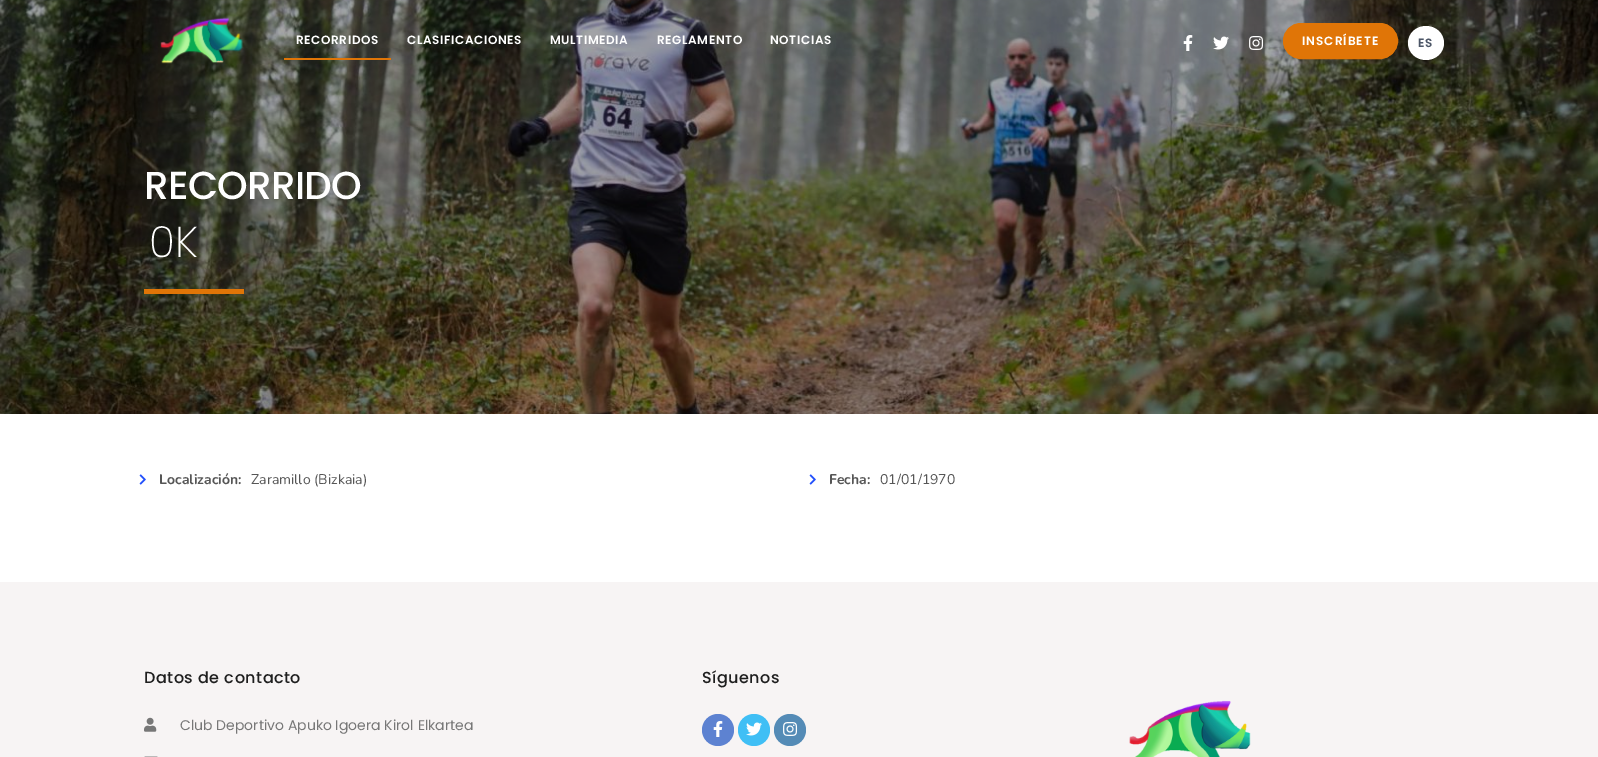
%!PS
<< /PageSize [1598 757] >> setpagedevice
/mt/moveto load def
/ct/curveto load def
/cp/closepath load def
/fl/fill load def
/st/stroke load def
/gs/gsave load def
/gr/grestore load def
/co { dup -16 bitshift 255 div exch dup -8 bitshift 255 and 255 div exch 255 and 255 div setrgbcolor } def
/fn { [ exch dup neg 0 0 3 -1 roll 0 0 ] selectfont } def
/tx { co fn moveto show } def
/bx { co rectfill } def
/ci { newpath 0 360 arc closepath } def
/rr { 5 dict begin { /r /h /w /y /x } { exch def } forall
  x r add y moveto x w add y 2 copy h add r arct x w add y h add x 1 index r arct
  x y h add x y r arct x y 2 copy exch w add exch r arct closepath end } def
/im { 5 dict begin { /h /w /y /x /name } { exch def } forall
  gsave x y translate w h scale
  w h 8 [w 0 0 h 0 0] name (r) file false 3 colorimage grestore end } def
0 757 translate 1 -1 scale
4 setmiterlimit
0 0 1598 757 16#FFFFFF bx
(media/5.raw) 0 0 1598 414 im
(media/1.raw) 160 17 83 47 im
284 58 107 2 16#E07507 bx
(media/2.raw) 1183 35 10 16 im
(media/3.raw) 1213 36 16 14 im
(media/4.raw) 1249 36 15 14 im
1283.5 23.5 114 35 17.5 rr gs fl gr
st
16#FFFFFF co
1426 26 mt 1436 26 1444 33.5 1444 43 ct 1444 52.5 1436 60 1426 60 ct 1416 60 1408 52.5 1408 43 ct 1408 33.5 1416 26 1426 26 ct cp fl
144 289 100 5 16#E07507 bx
(media/6.raw) 139 474 7 11 im
(media/6.raw) 809 474 7 11 im
0 582 1598 175 16#F7F4F4 bx
(media/7.raw) 144 717 13 15 im
(media/8.raw) 144 756 14 1 im
16#5D82D1 co
718 730 16 ci fl
(media/9.raw) 713 721 10 16 im
16#40BFF5 co
754 730 16 ci fl
(media/10.raw) 746 722 16 14 im
16#548BB6 co
790 730 16 ci fl
(media/11.raw) 783 722 15 14 im
(media/12.raw) 1129 700 122 57 im
/Poppins-SemiBold 12 fn
16#FFFFFF co
296 44 mt .6 0 (RECORRIDOS) ashow
407 44 mt .6 0 (CLASIFICACIONES) ashow
550 44 mt .6 0 (MULTIMEDIA) ashow
657 44 mt .6 0 (REGLAMENTO) ashow
770 44 mt .6 0 (NOTICIAS) ashow
1302 45 mt 1 0 (INSCRÍBETE) ashow
16#4C5667 co
1418 47 mt 1 0 (ES) ashow
/Poppins-Medium 39 fn
16#FFFFFF co
144 199 mt -.75 0 (RECORRIDO) ashow
/Poppins-ExtraLight 43 fn
149 257 mt -.75 0 (0) ashow
175 257 mt -.75 0 (K) ashow
(Localización:) 159 484 /Nunito-Bold 14 16#565656 tx
(Zaramillo \(Bizkaia\)) 251 484 /Nunito-Regular 14 16#565656 tx
(Fecha:) 829 484 /Nunito-Bold 14 16#565656 tx
(01/01/1970) 880 484 /Nunito-Regular 14 16#565656 tx
/Poppins-Medium 16 fn
16#1F1F1F co
144 683 mt .5 0 (Datos de contacto) ashow
(Club Deportivo Apuko Igoera Kirol Elkartea) 180 730 /Poppins-Regular 14 16#777777 tx
/Poppins-Medium 16 fn
16#1F1F1F co
702 683 mt .5 0 (Síguenos) ashow
showpage
